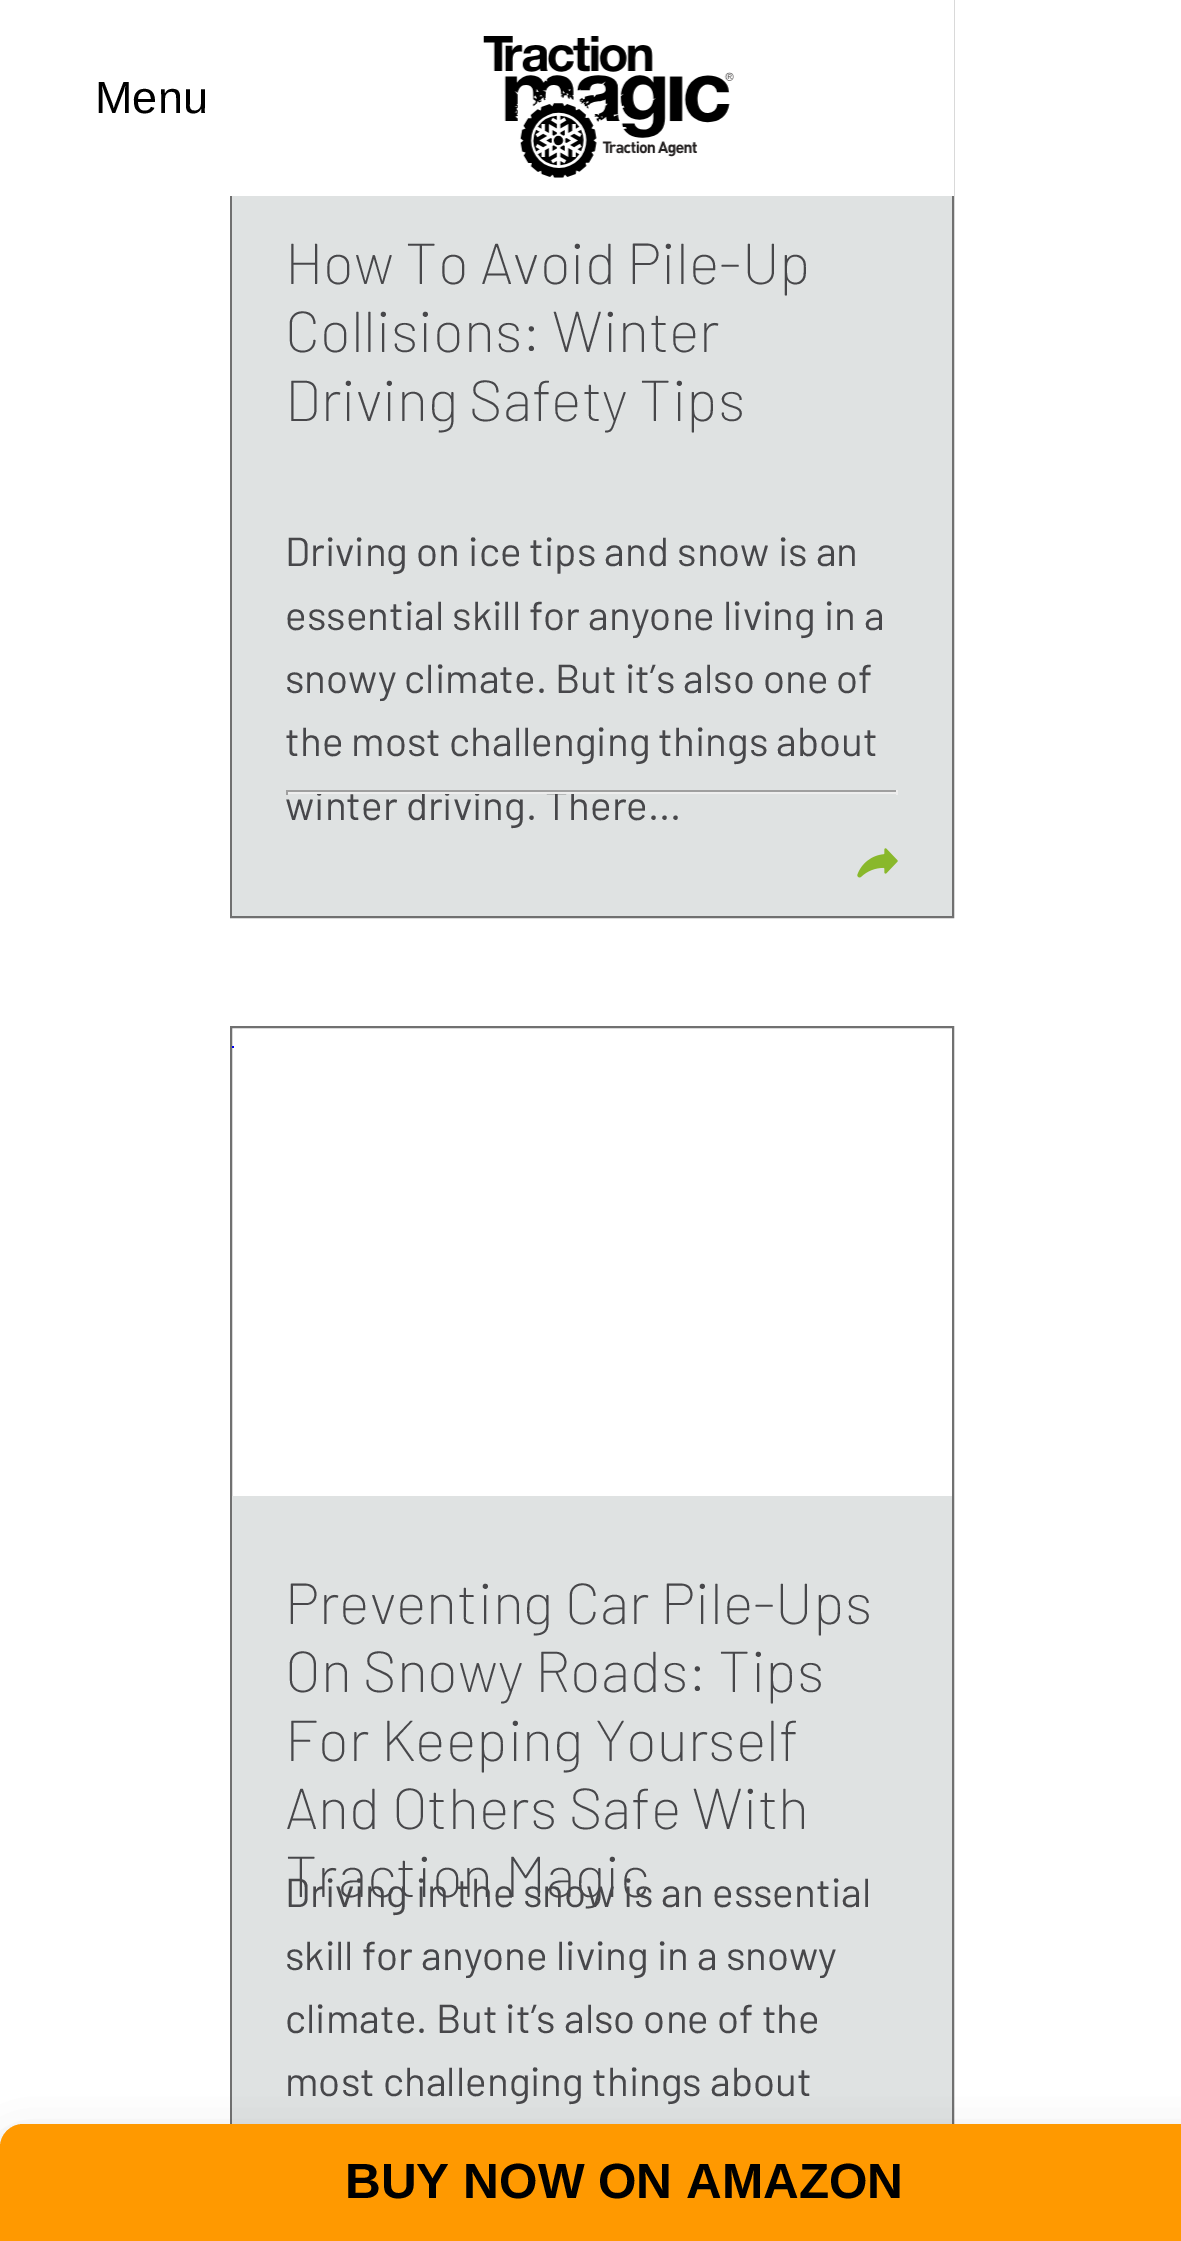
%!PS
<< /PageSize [1181 2241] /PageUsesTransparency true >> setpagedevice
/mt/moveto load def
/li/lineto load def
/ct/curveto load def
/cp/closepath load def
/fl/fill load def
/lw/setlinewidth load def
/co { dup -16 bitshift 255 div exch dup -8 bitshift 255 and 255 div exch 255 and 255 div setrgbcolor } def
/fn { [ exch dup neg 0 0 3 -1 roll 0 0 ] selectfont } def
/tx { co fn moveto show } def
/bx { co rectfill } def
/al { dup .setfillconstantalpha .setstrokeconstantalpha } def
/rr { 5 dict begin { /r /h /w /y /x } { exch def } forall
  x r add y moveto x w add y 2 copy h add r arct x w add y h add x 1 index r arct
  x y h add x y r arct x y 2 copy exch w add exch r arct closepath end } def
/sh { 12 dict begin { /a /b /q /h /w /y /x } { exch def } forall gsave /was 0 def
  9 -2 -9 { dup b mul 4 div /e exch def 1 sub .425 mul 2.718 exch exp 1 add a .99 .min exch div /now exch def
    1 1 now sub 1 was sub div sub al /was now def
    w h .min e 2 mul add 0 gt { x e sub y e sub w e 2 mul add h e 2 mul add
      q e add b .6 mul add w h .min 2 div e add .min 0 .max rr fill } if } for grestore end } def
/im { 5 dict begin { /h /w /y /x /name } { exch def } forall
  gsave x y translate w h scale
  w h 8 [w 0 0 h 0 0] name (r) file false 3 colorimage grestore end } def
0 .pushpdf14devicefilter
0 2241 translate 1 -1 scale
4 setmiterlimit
0 0 1181 2241 16#FFFFFF bx
16#707070 co
2 lw
231 -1 722 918 rectstroke
230 0 724 196 16#FFFFFF bx
(media/1.raw) 483 36 251 142 im
232 196 720 720 16#DFE2E2 bx
(media/2.raw) 857 848 41 30 im
16#707070 co
231 1027 722 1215 rectstroke
232 1046 2 2 16#0000EE bx
232 1496 720 628 16#DFE2E2 bx
16#000000 co
0 2138 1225 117 23 7 .23 sh
0 2147 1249 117 23 22.5 .19 sh
16#FF9900 co
23 2124 mt 1181 2124 li 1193.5 2124 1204 2134.5 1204 2147 ct 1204 2241 li 0 2241 li 0 2147 li 0 2134.5 10.5 2124 23 2124 ct cp fl
(Menu) 95 113 /LiberationSans-Regular 45 16#000000 tx
(How To Avoid Pile-Up) 285 284 /Barlow-ExtraLight 57.6 16#47474A tx
(Collisions: Winter) 285 352 /Barlow-ExtraLight 57.6 16#47474A tx
(Driving Safety Tips) 285 421 /Barlow-ExtraLight 57.6 16#47474A tx
(Driving on ice tips and snow is an) 285 566 /Barlow-Regular 40.5 16#47474A tx
(essential skill for anyone living in a) 285 630 /Barlow-Regular 40.5 16#47474A tx
(snowy climate. But it’s also one of) 285 693 /Barlow-Regular 40.5 16#47474A tx
(the most challenging things about) 285 756 /Barlow-Regular 40.5 16#47474A tx
(winter driving. There...) 285 820 /Barlow-Regular 40.5 16#47474A tx
286 790 612 2 16#9F9F9F bx
896 790 2 5 16#EEEEEE bx
286 792 612 2 16#EEEEEE bx
286 790 2 5 16#9F9F9F bx
(Preventing Car Pile-Ups) 285 1624 /Barlow-ExtraLight 57.6 16#47474A tx
(On Snowy Roads: Tips) 285 1692 /Barlow-ExtraLight 57.6 16#47474A tx
(For Keeping Yourself) 285 1761 /Barlow-ExtraLight 57.6 16#47474A tx
(And Others Safe With) 285 1829 /Barlow-ExtraLight 57.6 16#47474A tx
(Traction Magic) 285 1897 /Barlow-ExtraLight 57.6 16#47474A tx
(Driving in the snow is an essential) 285 1907 /Barlow-Regular 40.5 16#47474A tx
(skill for anyone living in a snowy) 285 1970 /Barlow-Regular 40.5 16#47474A tx
(climate. But it’s also one of the) 285 2033 /Barlow-Regular 40.5 16#47474A tx
(most challenging things about) 285 2096 /Barlow-Regular 40.5 16#47474A tx
(BUY NOW ON AMAZON) 345 2198 /LiberationSans-Bold 49.5 16#000000 tx
.poppdf14devicefilter showpage
